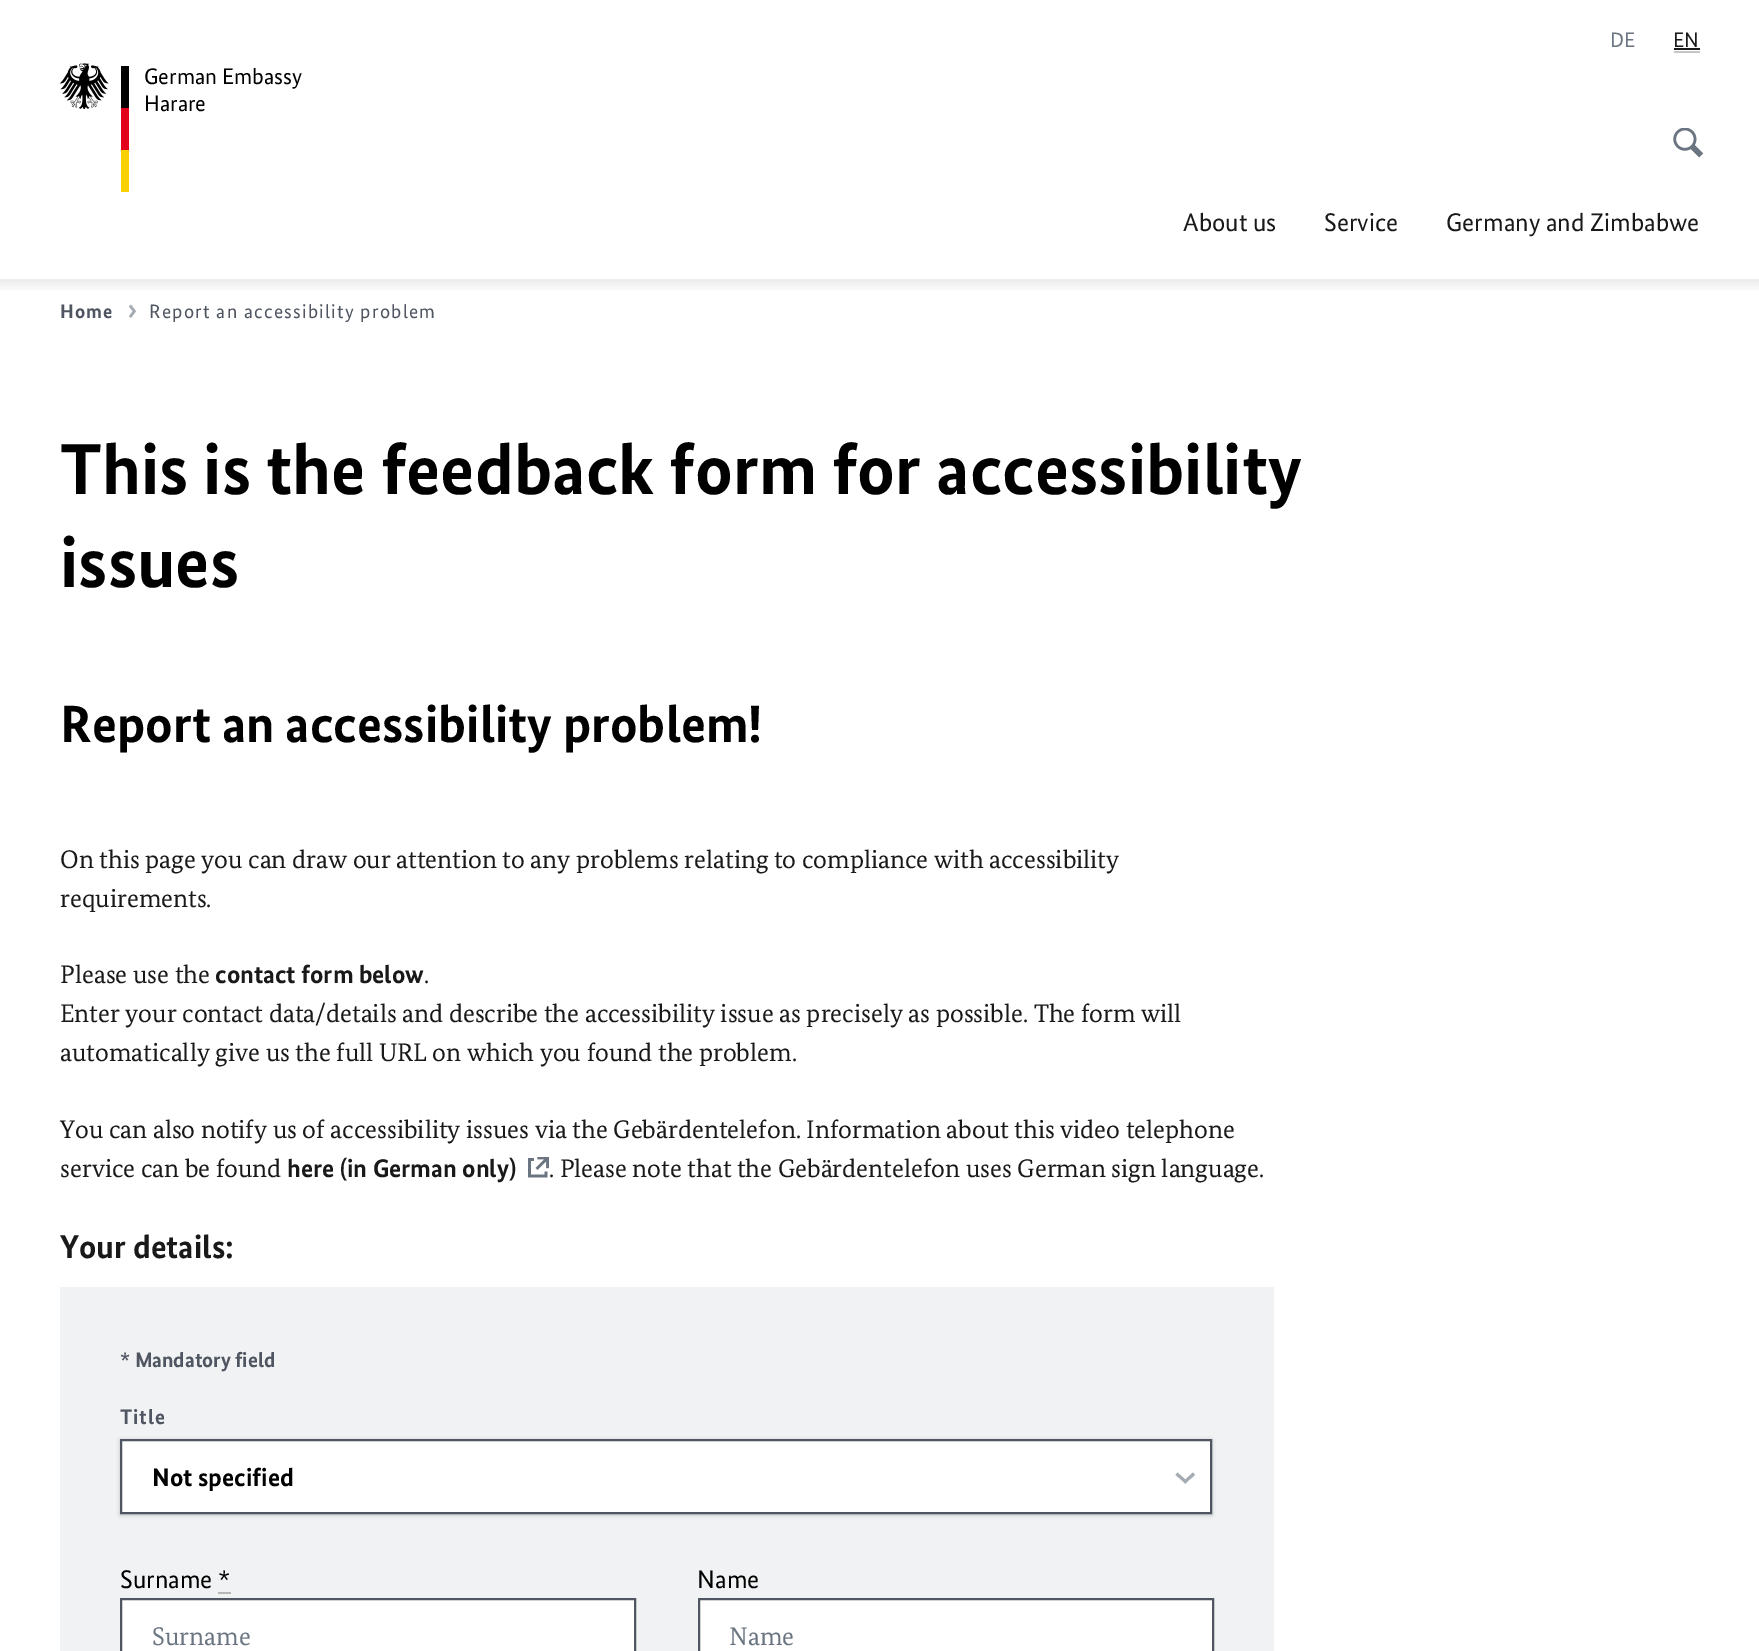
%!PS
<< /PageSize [1759 1651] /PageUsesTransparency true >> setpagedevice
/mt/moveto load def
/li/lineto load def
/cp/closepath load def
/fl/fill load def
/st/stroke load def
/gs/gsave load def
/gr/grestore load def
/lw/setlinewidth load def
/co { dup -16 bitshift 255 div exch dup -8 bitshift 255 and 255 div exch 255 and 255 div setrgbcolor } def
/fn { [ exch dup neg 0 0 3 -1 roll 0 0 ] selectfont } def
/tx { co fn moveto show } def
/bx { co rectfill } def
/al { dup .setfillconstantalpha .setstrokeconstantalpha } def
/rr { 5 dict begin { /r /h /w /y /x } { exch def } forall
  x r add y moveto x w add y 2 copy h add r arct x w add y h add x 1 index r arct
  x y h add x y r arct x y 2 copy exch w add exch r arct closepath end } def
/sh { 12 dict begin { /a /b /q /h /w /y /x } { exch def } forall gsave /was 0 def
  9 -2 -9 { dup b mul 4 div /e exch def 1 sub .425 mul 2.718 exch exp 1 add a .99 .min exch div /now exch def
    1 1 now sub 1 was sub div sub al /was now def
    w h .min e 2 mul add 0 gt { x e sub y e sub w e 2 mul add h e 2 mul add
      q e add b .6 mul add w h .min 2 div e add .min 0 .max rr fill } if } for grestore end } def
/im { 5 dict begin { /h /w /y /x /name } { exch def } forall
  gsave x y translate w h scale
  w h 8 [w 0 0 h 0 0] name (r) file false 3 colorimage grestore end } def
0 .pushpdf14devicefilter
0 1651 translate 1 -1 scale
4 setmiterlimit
0 0 1759 1651 16#FFFFFF bx
gs
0 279 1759 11 rectclip
16#000000 co
-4 -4 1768 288 0 7 .1 sh
gr
(media/1.raw) 60 63 69 129 im
1674 48 26 2 16#191919 bx
1674 51 26 2 16#C6C6C6 bx
(media/2.raw) 1673 128 31 30 im
(media/3.raw) 128 304 8 14 im
(media/4.raw) 528 1157 21 21 im
60 1287 1214 364 16#F1F2F3 bx
16#89919A co
120 1440 1092 75 0 2 .5 sh
16#FFFFFF co
121 1440 mt 1211 1440 li 1211 1513 li 121 1513 li cp gs fl gr
16#4F5661 co
2 lw
st
16#A6ACB3 co
1177.5 1472.5 mt 1187.5 1481.5 li 1185.5 1483.5 li 1175.5 1475 li cp fl
1183 1481.5 mt 1193 1472.5 li 1195 1475 li 1185 1483.5 li cp fl
218 1592 13 2 16#B5B6B6 bx
16#FFFFFF co
121 1599 mt 635 1599 li 635 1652 li 121 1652 li cp gs fl gr
16#4F5661 co
st
16#FFFFFF co
699 1599 mt 1213 1599 li 1213 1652 li 699 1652 li cp gs fl gr
16#4F5661 co
st
(German Embassy) 144 84 /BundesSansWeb-Regular 22.5 16#000000 tx
(Harare) 144 111 /BundesSansWeb-Regular 22.5 16#000000 tx
(DE) 1610 47 /BundesSansWeb-Regular 21 16#6B7581 tx
(EN) 1673 47 /BundesSansWeb-Regular 21 16#191919 tx
(About us) 1183 231 /BundesSansWeb-Regular 25.5 16#191919 tx
(Service) 1324 231 /BundesSansWeb-Regular 25.5 16#191919 tx
(Germany and Zimbabwe) 1446 231 /BundesSansWeb-Regular 25.5 16#191919 tx
/BundesSansWeb-Bold 19.5 fn
16#4F5661 co
60 318 mt 1 0 (Home) ashow
/BundesSansWeb-Regular 19.5 fn
149 318 mt 1.25 0 (Report an accessibility problem) ashow
(This is the feedback form for accessibility) 60 494 /BundesSansWeb-Bold 72 16#000000 tx
(issues) 60 587 /BundesSansWeb-Bold 72 16#000000 tx
(Report an accessibility problem!) 60 742 /BundesSansWeb-Bold 52.5 16#000000 tx
(On this page you can draw our attention to any problems relating to compliance with accessibility) 60 868 /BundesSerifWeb-Regular 25.5 16#191919 tx
(requirements.) 60 907 /BundesSerifWeb-Regular 25.5 16#191919 tx
(Please use the) 60 983 /BundesSerifWeb-Regular 25.5 16#191919 tx
(contact form below) 215 983 /BundesSansWeb-Bold 25.5 16#191919 tx
(.) 424 983 /BundesSerifWeb-Regular 25.5 16#191919 tx
(Enter your contact data/details and describe the accessibility issue as precisely as possible. The form will) 60 1022 /BundesSerifWeb-Regular 25.5 16#191919 tx
(automatically give us the full URL on which you found the problem.) 60 1061 /BundesSerifWeb-Regular 25.5 16#191919 tx
(You can also notify us of accessibility issues via the Gebärdentelefon. Information about this video telephone) 60 1138 /BundesSerifWeb-Regular 25.5 16#191919 tx
(service can be found) 60 1177 /BundesSerifWeb-Regular 25.5 16#191919 tx
(here \(in German only\)) 287 1177 /BundesSansWeb-Bold 25.5 16#191919 tx
(. Please note that the Gebärdentelefon uses German sign language.) 549 1177 /BundesSerifWeb-Regular 25.5 16#191919 tx
(Your details:) 60 1258 /BundesSansWeb-Bold 33 16#191919 tx
(* Mandatory field) 120 1367 /BundesSansWeb-Bold 21 16#4F5661 tx
120 1424 mt 1 0 (Title) ashow
gs
152 1461 1029 30 rectclip
(Not specified) 152 1486 /BundesSansWeb-Bold 25.5 16#000000 tx
gr
(Surname *) 120 1588 /BundesSansWeb-Regular 25.5 16#000000 tx
(Surname) 152 1645 /BundesSerifWeb-Regular 25.5 16#6B7581 tx
(Name) 697 1588 /BundesSansWeb-Regular 25.5 16#000000 tx
(Name) 729 1645 /BundesSerifWeb-Regular 25.5 16#6B7581 tx
.poppdf14devicefilter showpage
